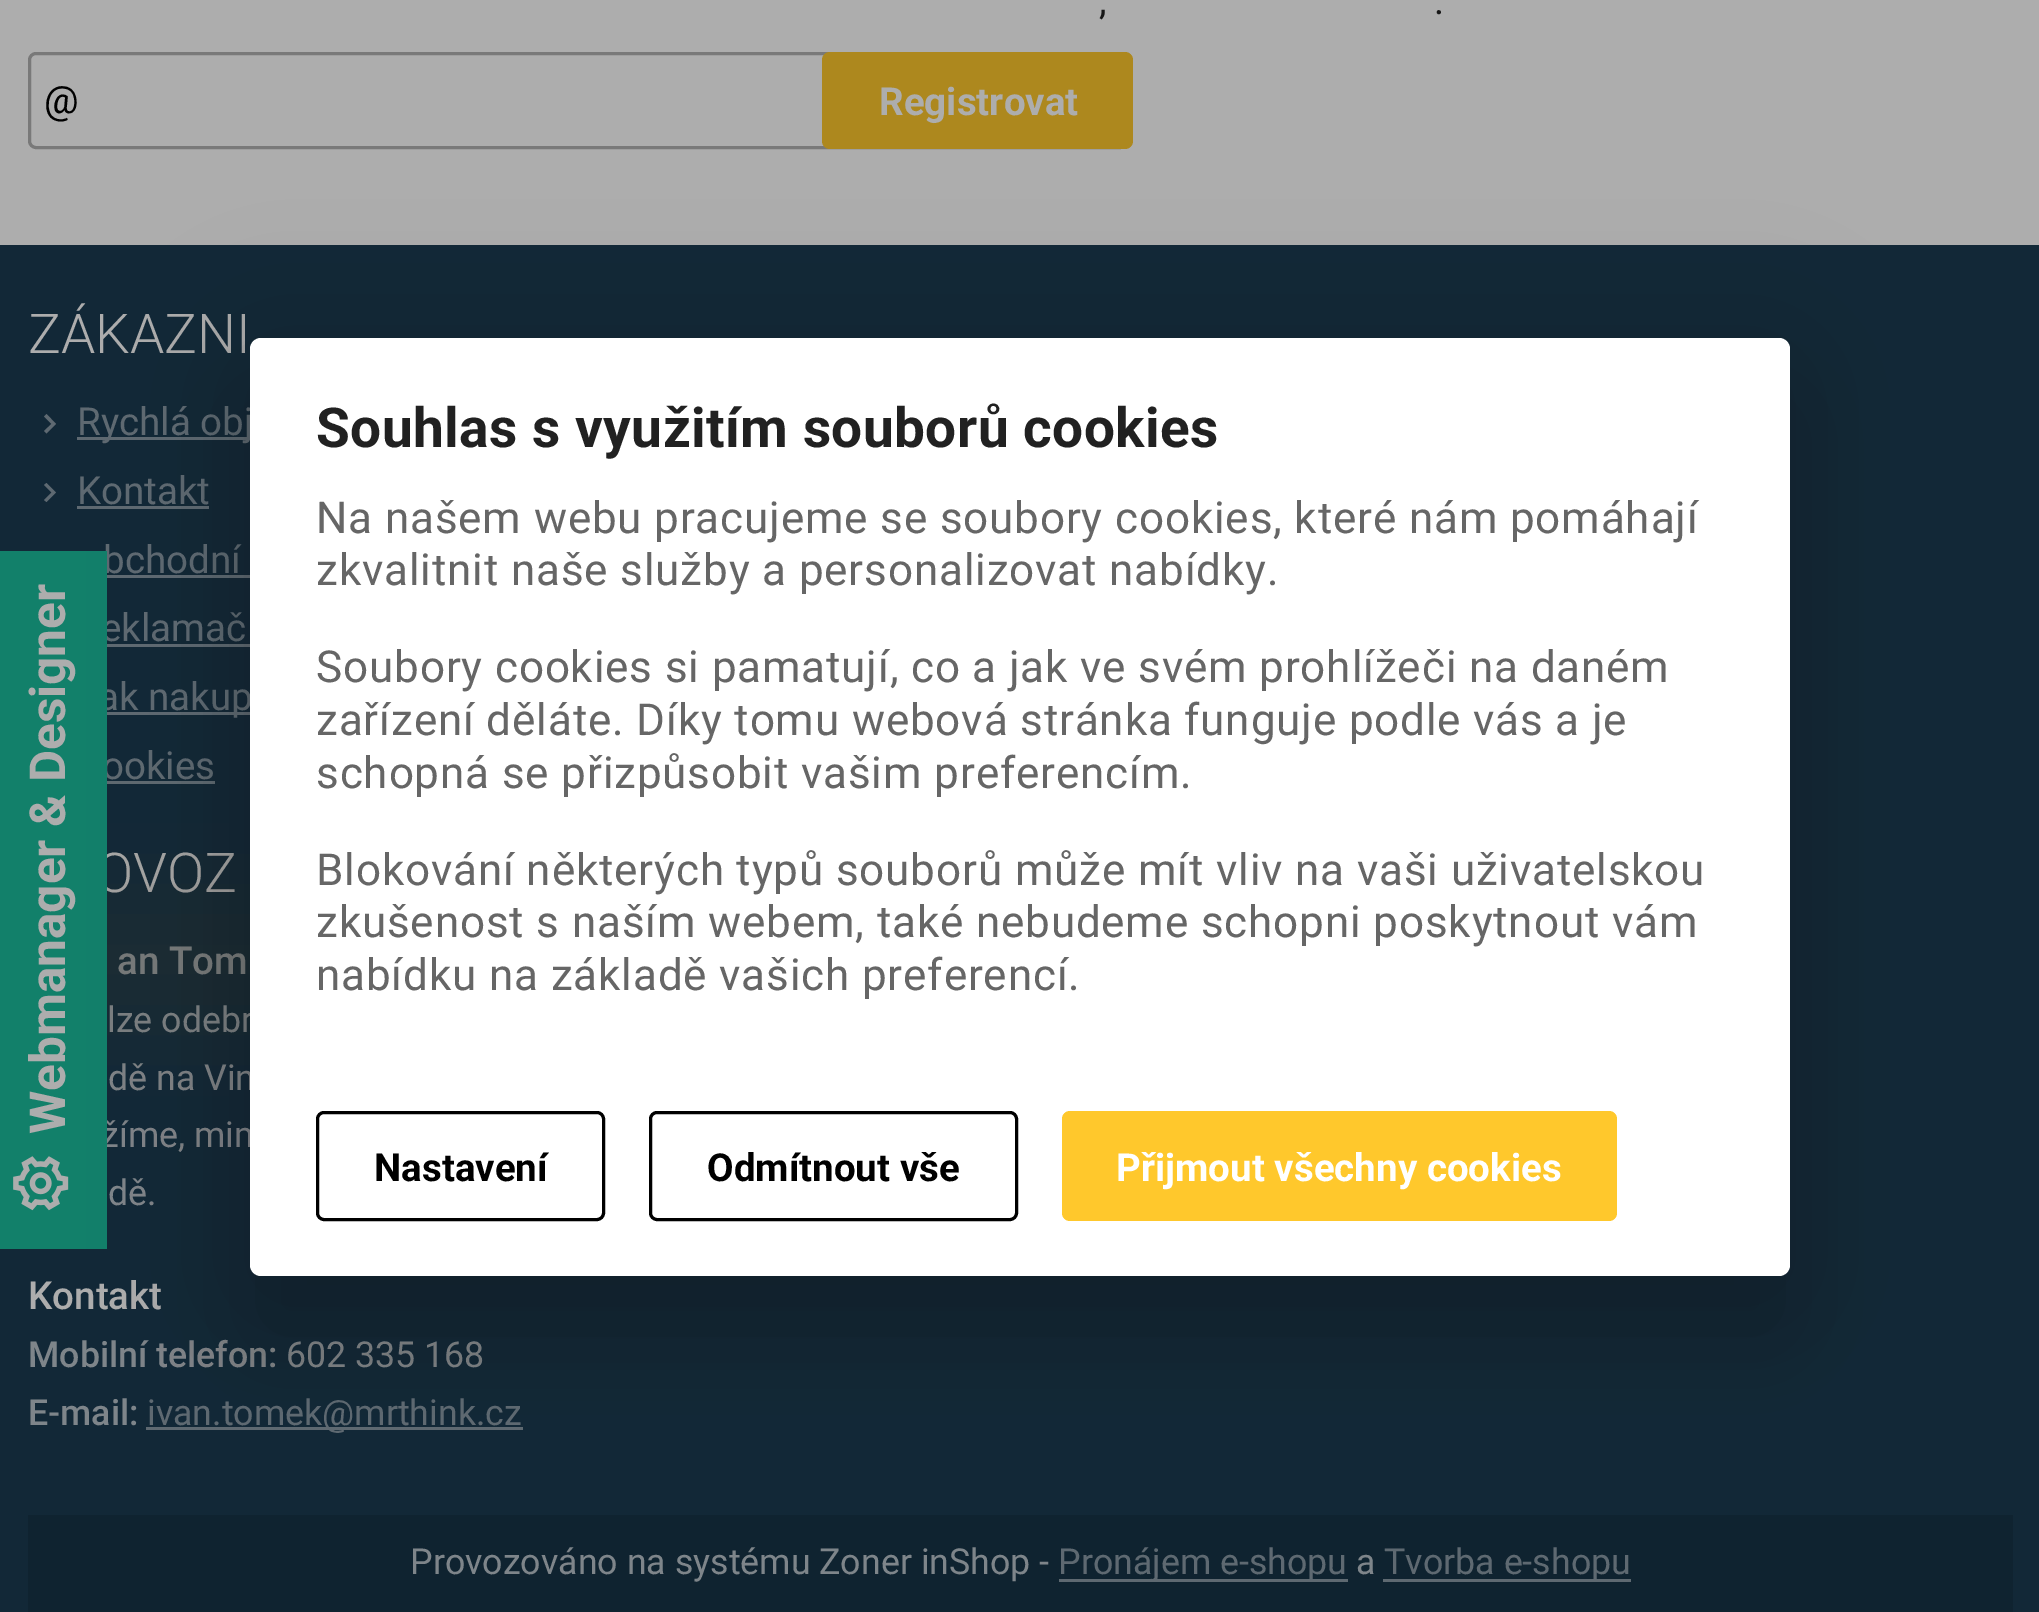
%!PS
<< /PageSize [2039 1612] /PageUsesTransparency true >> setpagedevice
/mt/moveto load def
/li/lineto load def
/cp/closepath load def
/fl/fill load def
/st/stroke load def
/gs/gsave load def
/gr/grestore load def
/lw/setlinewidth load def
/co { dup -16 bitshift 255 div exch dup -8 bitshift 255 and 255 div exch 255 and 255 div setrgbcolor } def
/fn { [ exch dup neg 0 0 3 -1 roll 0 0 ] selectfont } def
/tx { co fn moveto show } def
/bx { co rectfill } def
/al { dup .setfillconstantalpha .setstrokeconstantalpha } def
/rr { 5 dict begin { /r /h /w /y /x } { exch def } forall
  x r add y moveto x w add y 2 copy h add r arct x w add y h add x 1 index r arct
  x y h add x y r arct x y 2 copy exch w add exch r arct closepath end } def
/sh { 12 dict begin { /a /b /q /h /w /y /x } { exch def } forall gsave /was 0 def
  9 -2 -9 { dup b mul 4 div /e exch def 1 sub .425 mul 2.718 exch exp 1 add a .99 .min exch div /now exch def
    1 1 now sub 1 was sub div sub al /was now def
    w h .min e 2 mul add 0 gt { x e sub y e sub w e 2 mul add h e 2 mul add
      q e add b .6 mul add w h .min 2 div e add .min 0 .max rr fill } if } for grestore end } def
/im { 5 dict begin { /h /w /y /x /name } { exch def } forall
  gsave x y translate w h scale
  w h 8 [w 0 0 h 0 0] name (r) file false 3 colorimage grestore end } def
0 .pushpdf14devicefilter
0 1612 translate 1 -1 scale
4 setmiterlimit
0 0 2039 1612 16#ADADAD bx
16#797979 co
3 lw
29.5 53.5 1097 94 6.5 rr st
16#AD881E co
822 52 311 97 8 rr fl
0 245 2039 1367 16#122837 bx
16#5E6971 co
44 431 mt 51.5 424 li 44 416.5 li 46.5 414 li 56 424 li 46.5 433.5 li cp fl
77 437 173 3 16#5E6971 bx
44 500 mt 51.5 492.5 li 44 485 li 46.5 483 li 56 492.5 li 46.5 502 li cp fl
77 506 132 3 16#5E6971 bx
107 575 143 3 16#5E6971 bx
107 644 143 3 16#5E6971 bx
107 712 143 3 16#5E6971 bx
107 781 108 3 16#5E6971 bx
146 1427 377 3 16#5E6971 bx
28 1515 1985 97 16#0F2330 bx
1059 1579 289 3 16#5E6971 bx
1383 1579 248 3 16#5E6971 bx
(,) 1099 14 /Roboto-Regular 38.5 16#171717 tx
(.) 1434 14 /Roboto-Regular 38.5 16#171717 tx
(@) 44 113 /Roboto-Regular 38.5 16#000000 tx
(Registrovat) 879 115 /Roboto-Bold 38.5 16#ADADAD tx
(ZÁKAZNI) 28 353 /Roboto-Light 55 16#ADADAD tx
(Rychlá obj) 77 435 /Roboto-Regular 38.5 16#5E6971 tx
(Kontakt) 77 504 /Roboto-Regular 38.5 16#5E6971 tx
(bchodní) 103 573 /Roboto-Regular 38.5 16#5E6971 tx
(eklamač) 101 641 /Roboto-Regular 38.5 16#5E6971 tx
(ak nakup) 98 710 /Roboto-Regular 38.5 16#5E6971 tx
(ookies) 102 779 /Roboto-Regular 38.5 16#5E6971 tx
(OVOZ) 96 892 /Roboto-Light 55 16#ADADAD tx
(an Tom) 117 974 /Roboto-Medium 38.5 16#7E858A tx
(lze odebr) 107 1032 /Roboto-Regular 35.75 16#7E858A tx
(dě na Vin) 108 1090 /Roboto-Regular 35.75 16#7E858A tx
(žíme, mim) 101 1147 /Roboto-Regular 35.75 16#7E858A tx
(dě.) 108 1205 /Roboto-Regular 35.75 16#7E858A tx
(Kontakt) 28 1309 /Roboto-Medium 38.5 16#ADADAD tx
(Mobilní telefon:) 28 1367 /Roboto-Medium 35.75 16#7E858A tx
(602 335 168) 286 1367 /Roboto-Regular 35.75 16#7E858A tx
(E-mail:) 28 1425 /Roboto-Medium 35.75 16#7E858A tx
(ivan.tomek@mrthink.cz) 147 1425 /Roboto-Regular 35.75 16#5E6971 tx
(Provozováno na systému Zoner inShop -) 410 1574 /Roboto-Regular 35.75 16#7E858A tx
(Pronájem e-shopu) 1058 1574 /Roboto-Regular 35.75 16#5E6971 tx
(a) 1356 1574 /Roboto-Regular 35.75 16#7E858A tx
(Tvorba e-shopu) 1384 1574 /Roboto-Regular 35.75 16#5E6971 tx
0 551 107 698 16#12806A bx
gs
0 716 mt 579 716 li 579 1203 li 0 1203 li cp -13.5 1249 mt -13.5 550.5 li 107.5 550.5 li 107.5 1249 li cp eoclip newpath
16#473C27 co
-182 899 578 121 0 60.5 .2 sh
gr
/Roboto-Bold 49.5 fn
16#ADADAD co
gs 65 1134 translate -90 rotate 0 0 mt (Webmanager & Designer) show gr
(media/1.raw) 13 1156 56 55 im
16#000000 co
228 341 1584 982 33 63 .12 sh
242 396 1557 954 19 52 .14 sh
16#FFFFFF co
250 338 1540 938 11 rr fl
/Roboto-Bold 55 fn
16#212121 co
316 447 mt .45 0 (Souhlas s využitím souborů cookies) ashow
/Roboto-Regular 44 fn
16#666666 co
316 533 mt .85 0 (Na našem webu pracujeme se soubory cookies, které nám pomáhají) ashow
316 585 mt .85 0 (zkvalitnit naše služby a personalizovat nabídky.) ashow
316 682 mt .85 0 (Soubory cookies si pamatují, co a jak ve svém prohlížeči na daném) ashow
316 735 mt .85 0 (zařízení děláte. Díky tomu webová stránka funguje podle vás a je) ashow
316 788 mt .85 0 (schopná se přizpůsobit vašim preferencím.) ashow
316 885 mt .85 0 (Blokování některých typů souborů může mít vliv na vaši uživatelskou) ashow
316 937 mt .85 0 (zkušenost s naším webem, také nebudeme schopni poskytnout vám) ashow
316 990 mt .85 0 (nabídku na základě vašich preferencí.) ashow
16#000000 co
317.5 1112.5 286 107 6.5 rr st
(Nastavení) 374 1181 /Roboto-Bold 38.5 16#000000 tx
650.5 1112.5 366 107 6.5 rr st
(Odmítnout vše) 707 1181 /Roboto-Bold 38.5 16#000000 tx
16#FFC82C co
1062 1111 555 110 8 rr fl
(Přijmout všechny cookies) 1116 1181 /Roboto-Bold 38.5 16#FFFFFF tx
.poppdf14devicefilter showpage
